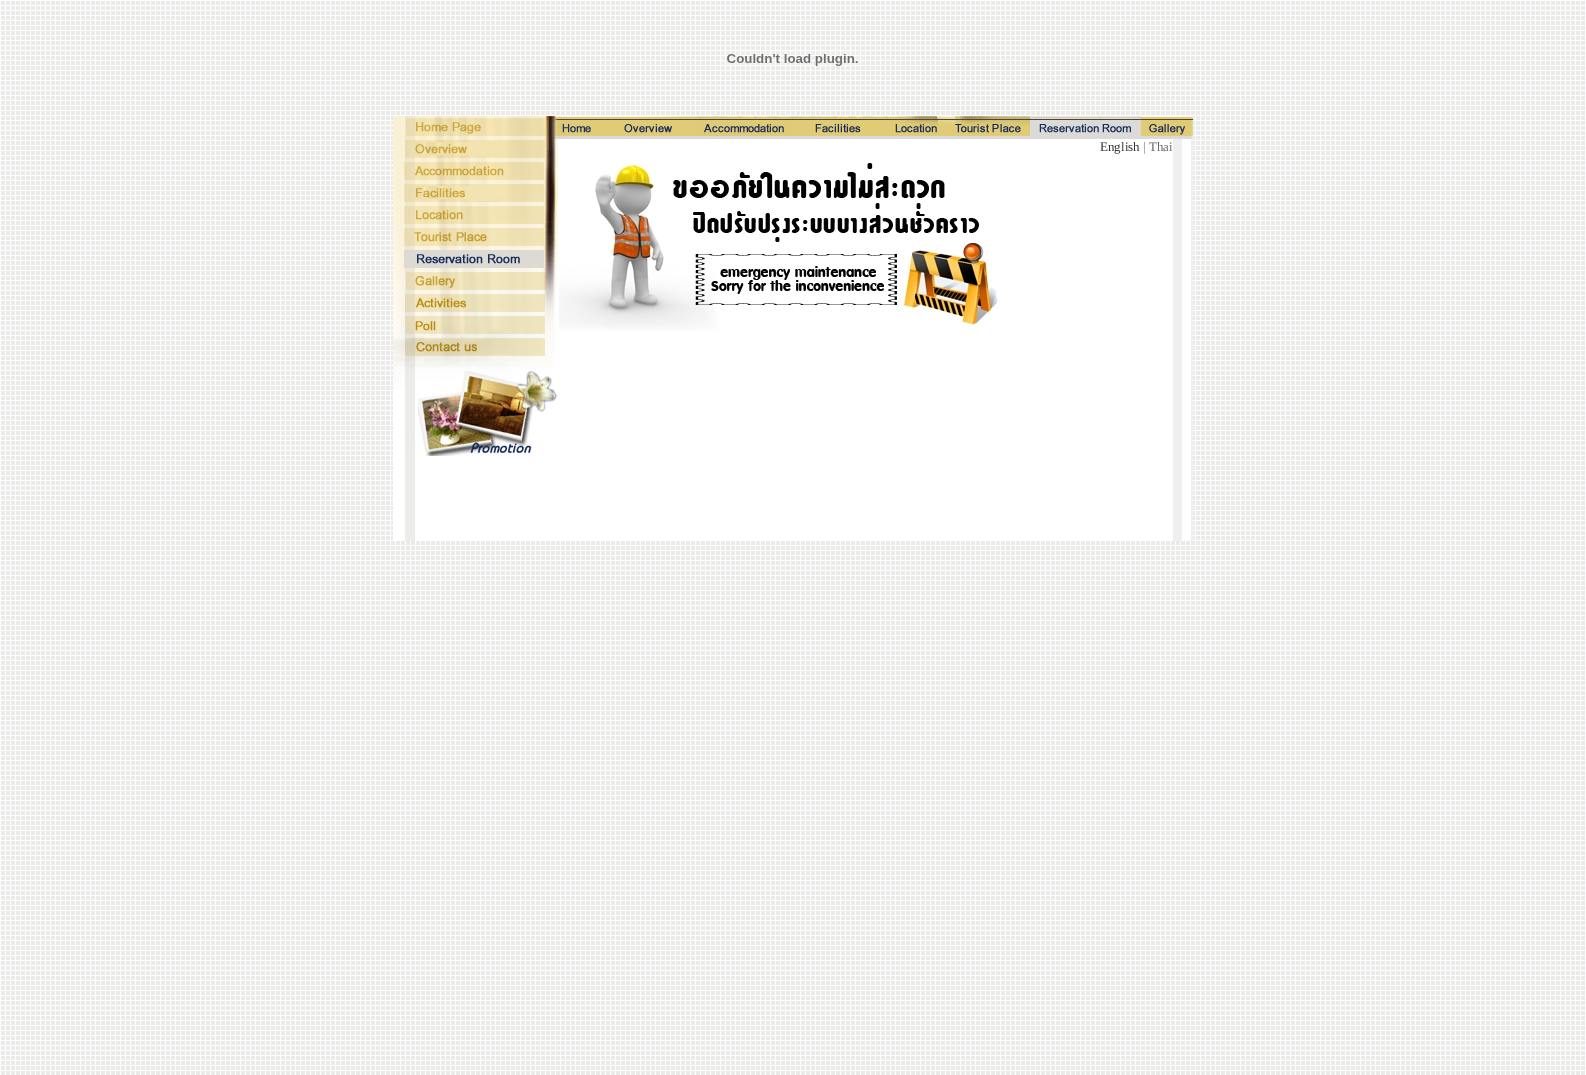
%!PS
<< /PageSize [1586 1075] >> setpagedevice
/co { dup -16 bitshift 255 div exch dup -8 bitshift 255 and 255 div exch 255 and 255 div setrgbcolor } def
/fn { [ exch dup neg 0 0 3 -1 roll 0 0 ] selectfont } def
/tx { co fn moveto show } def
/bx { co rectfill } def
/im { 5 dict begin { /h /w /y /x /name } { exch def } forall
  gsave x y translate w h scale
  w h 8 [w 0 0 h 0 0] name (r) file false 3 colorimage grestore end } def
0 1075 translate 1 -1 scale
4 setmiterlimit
0 0 1586 1075 16#FFFFFF bx
(media/1.raw) 1 1 1584 1074 im
(media/2.raw) 721 49 143 18 im
393 389 11 68 16#FFFFFF bx
(media/3.raw) 393 116 11 273 im
(media/4.raw) 404 116 140 19 im
(media/5.raw) 544 116 11 23 im
(media/6.raw) 555 116 45 20 im
(media/7.raw) 600 116 98 20 im
(media/8.raw) 698 116 92 20 im
(media/9.raw) 790 116 96 20 im
(media/10.raw) 886 116 61 20 im
(media/11.raw) 947 116 83 20 im
(media/12.raw) 1030 116 111 20 im
(media/13.raw) 1141 116 52 20 im
(media/14.raw) 404 135 140 4 im
(media/15.raw) 555 136 637 3 im
(media/16.raw) 404 139 140 19 im
544 139 15 318 16#FFFFFF bx
(media/17.raw) 544 139 14 272 im
559 139 614 402 16#FFFFFF bx
(media/18.raw) 559 163 439 168 im
(media/19.raw) 1173 139 20 402 im
(media/20.raw) 404 158 140 4 im
(media/21.raw) 404 162 140 18 im
(media/22.raw) 404 180 140 4 im
(media/23.raw) 404 184 140 18 im
(media/24.raw) 404 202 140 5 im
(media/25.raw) 404 207 140 17 im
(media/26.raw) 404 224 140 4 im
(media/27.raw) 404 228 140 17 im
(media/28.raw) 404 245 140 5 im
(media/29.raw) 404 250 140 18 im
(media/30.raw) 404 268 140 4 im
(media/31.raw) 404 272 140 18 im
(media/32.raw) 404 290 140 4 im
(media/33.raw) 404 294 140 18 im
(media/34.raw) 404 312 140 4 im
(media/35.raw) 404 316 140 18 im
(media/36.raw) 404 334 140 4 im
(media/37.raw) 404 338 140 18 im
(media/38.raw) 404 356 140 101 im
(media/39.raw) 393 457 166 84 im
(English) 1100 151 /LiberationSerif-Regular 13 16#323231 tx
(| Thai) 1143 151 /LiberationSerif-Regular 13 16#666666 tx
showpage
